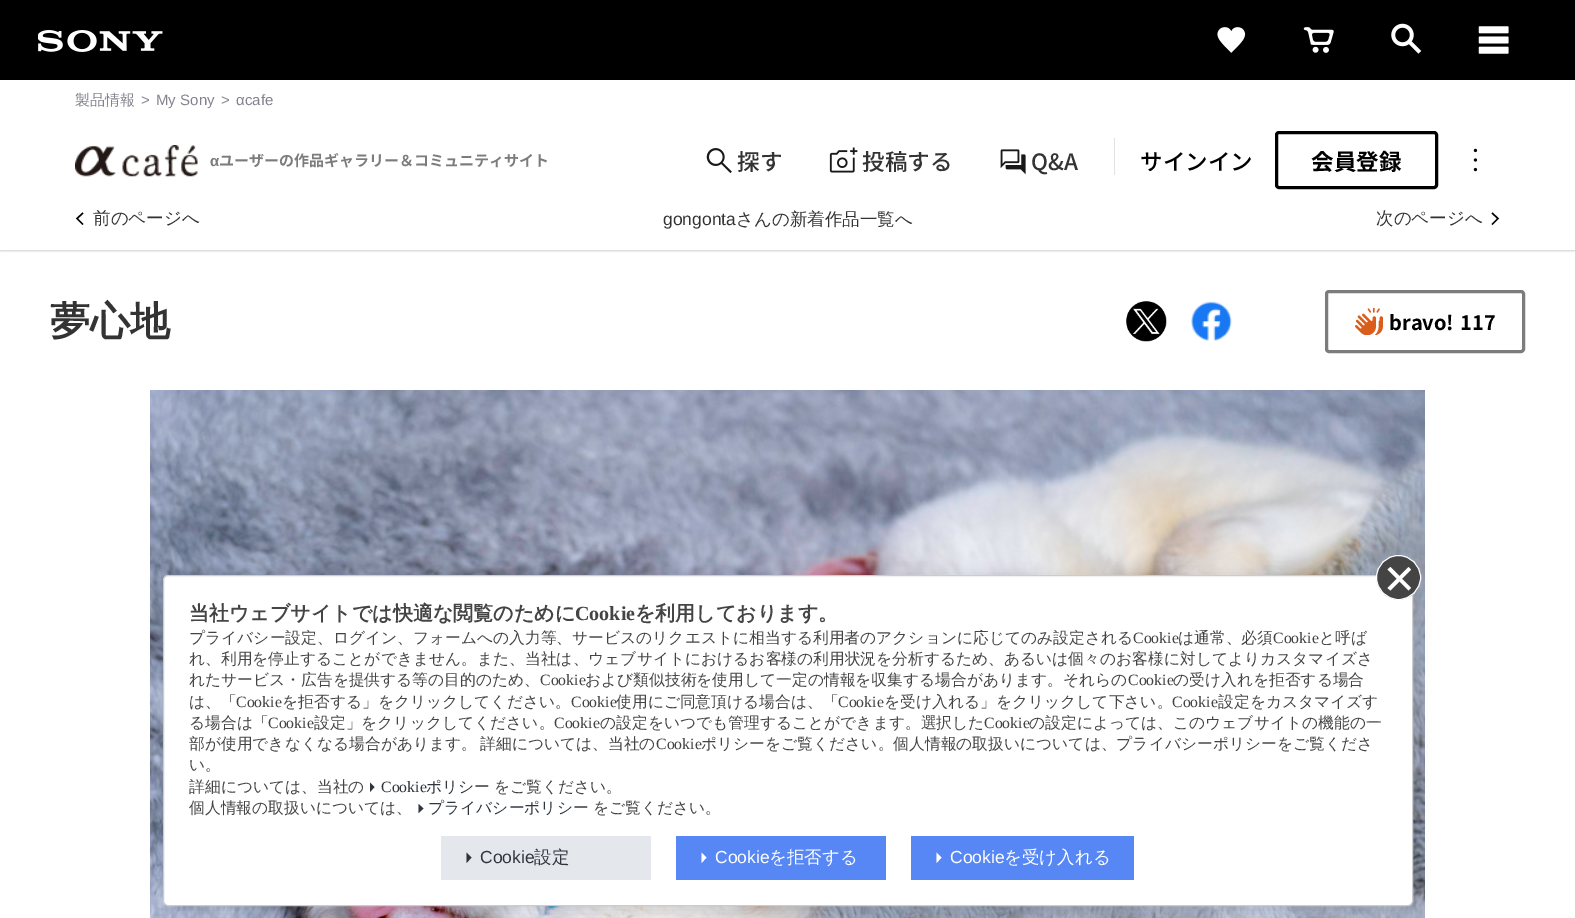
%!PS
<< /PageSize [1575 918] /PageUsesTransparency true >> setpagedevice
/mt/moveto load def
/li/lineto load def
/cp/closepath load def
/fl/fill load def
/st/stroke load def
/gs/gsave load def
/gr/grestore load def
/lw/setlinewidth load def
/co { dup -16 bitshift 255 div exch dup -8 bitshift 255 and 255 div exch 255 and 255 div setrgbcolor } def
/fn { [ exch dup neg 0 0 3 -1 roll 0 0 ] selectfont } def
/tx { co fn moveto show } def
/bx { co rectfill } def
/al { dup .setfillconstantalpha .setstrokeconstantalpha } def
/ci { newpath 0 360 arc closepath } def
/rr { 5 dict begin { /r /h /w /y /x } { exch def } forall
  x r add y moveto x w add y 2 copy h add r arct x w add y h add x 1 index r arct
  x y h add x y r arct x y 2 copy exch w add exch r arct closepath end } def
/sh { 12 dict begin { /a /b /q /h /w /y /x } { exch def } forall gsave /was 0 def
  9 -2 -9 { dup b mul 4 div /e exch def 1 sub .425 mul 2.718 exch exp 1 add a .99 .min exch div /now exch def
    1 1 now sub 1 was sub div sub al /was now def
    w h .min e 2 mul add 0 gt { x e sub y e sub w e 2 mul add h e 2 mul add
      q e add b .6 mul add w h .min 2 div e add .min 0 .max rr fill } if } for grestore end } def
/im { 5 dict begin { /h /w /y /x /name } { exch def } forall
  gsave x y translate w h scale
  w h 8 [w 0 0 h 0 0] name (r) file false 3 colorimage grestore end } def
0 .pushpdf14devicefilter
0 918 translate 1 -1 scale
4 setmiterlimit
0 0 1575 918 16#FFFFFF bx
0 0 1575 80 16#000000 bx
(media/1.raw) 38 30 125 22 im
(media/2.raw) 1217 27 29 26 im
(media/3.raw) 1303 27 31 26 im
(media/4.raw) 1391 23 31 31 im
(media/5.raw) 1478 26 31 28 im
(media/6.raw) 75 145 123 32 im
(media/7.raw) 706 148 26 26 im
(media/8.raw) 829 147 29 26 im
(media/9.raw) 1000 149 26 26 im
1114 138 1 37 16#E2E2E2 bx
16#000000 co
3 lw
1276.5 132.5 160 55 2.5 rr st
(media/10.raw) 1473 148 5 24 im
gs
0 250 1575 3 rectclip
16#CCCCCC co
0 209 1575 42 0 1 1 sh
gr
1.4 lw
83 224.5 mt 77 218.5 li 83 213 li st
1492 224.5 mt 1498 218.5 li 1492 213 li st
(media/11.raw) 1126 301 41 41 im
(media/12.raw) 1191 301 41 41 im
16#7C7C7C co
3 lw
1326.5 291.5 197 60 2.5 rr st
(media/13.raw) 1355 308 28 27 im
(media/14.raw) 150 390 1275 528 im
16#000000 co
165 578 1250 331 5 7.5 .1 sh
16#FFFFFF co
163.5 575.5 1249 330 4.5 rr gs fl gr
16#CCCCCC co
1 lw
st
16#444444 co
1398.5 577.5 22 ci gs fl gr
16#FFFFFF co
st
1387.5 588 mt 1408.5 567 li 1411 569.5 li 1390.5 590.5 li cp fl
1390.5 567 mt 1411 588 li 1408.5 590.5 li 1387.5 569.5 li cp fl
16#2F353D co
370 782.5 mt 374.5 787 li 370 792 li cp fl
418.5 804 mt 423.5 808.5 li 418.5 813 li cp fl
16#E4E7EC co
441 836 210 44 1 rr fl
16#2F353D co
466.5 852.5 mt 471.5 857.5 li 466.5 863 li cp fl
16#5787F4 co
676 836 210 44 1 rr fl
16#FFFFFF co
701.5 852.5 mt 706.5 857.5 li 701.5 863 li cp fl
16#5787F4 co
911 836 223 44 1 rr fl
16#FFFFFF co
936.5 852.5 mt 941.5 857.5 li 936.5 863 li cp fl
(製品情報) 75 105 /WenQuanYiZenHei-Medium 15 16#83838F tx
(>) 141 105 /LiberationSans-Regular 15 16#83838F tx
(My Sony) 156 105 /LiberationSans-Regular 15 16#83838F tx
(>) 221 105 /LiberationSans-Regular 15 16#83838F tx
(αcafe) 236 105 /LiberationSans-Regular 15 16#83838F tx
(α) 210 166 /LiberationSans-Bold 15 16#7C7C7C tx
(ユーザーの作品ギャラリー＆コミュニティサイト) 219 166 /NotoSansJP-Bold 15 16#7C7C7C tx
(探す) 737 170 /NotoSansJP-Medium 22.5 16#333333 tx
(投稿する) 862 170 /NotoSansJP-Medium 22.5 16#333333 tx
(Q&A) 1031 170 /NotoSansJP-Medium 22.5 16#333333 tx
(サインイン) 1140 170 /NotoSansJP-Medium 22.5 16#000000 tx
(会員登録) 1311 170 /NotoSansJP-Bold 22.5 16#000000 tx
(前のページへ) 93 224 /WenQuanYiZenHei-Medium 17.5 16#333333 tx
(gongonta) 663 225 /LiberationSans-Regular 17.5 16#333333 tx
(さんの新着作品一覧へ) 736 225 /WenQuanYiZenHei-Medium 17.5 16#333333 tx
(次のページへ) 1376 224 /WenQuanYiZenHei-Medium 17.5 16#333333 tx
(夢心地) 50 335 /WenQuanYiZenHei-Bold 40 16#333333 tx
(bravo!) 1389 330 /NotoSansJP-Bold 20 16#000000 tx
(117) 1460 330 /NotoSansJP-Bold 20 16#000000 tx
(当社ウェブサイトでは快適な閲覧のために) 189 620 /WenQuanYiZenHei-Bold 20 16#444444 tx
(Cookie) 575 620 /LiberationSerif-Bold 20 16#444444 tx
(を利用しております。) 635 620 /WenQuanYiZenHei-Bold 20 16#444444 tx
(プライバシー設定、ログイン、フォームへの入力等、サービスのリクエストに相当する利用者のアクションに応じてのみ設定される) 189 643 /WenQuanYiZenHei-Medium 15.75 16#444444 tx
(Cookie) 1133 643 /LiberationSerif-Regular 15.75 16#444444 tx
(は通常、必須) 1178 643 /WenQuanYiZenHei-Medium 15.75 16#444444 tx
(Cookie) 1273 643 /LiberationSerif-Regular 15.75 16#444444 tx
(と呼ば) 1319 643 /WenQuanYiZenHei-Medium 15.75 16#444444 tx
(れ、利用を停止することができません。また、当社は、ウェブサイトにおけるお客様の利用状況を分析するため、あるいは個々のお客様に対してよりカスタマイズさ) 189 664 /WenQuanYiZenHei-Medium 15.75 16#444444 tx
(れたサービス・広告を提供する等の目的のため、) 189 685 /WenQuanYiZenHei-Medium 15.75 16#444444 tx
(Cookie) 540 685 /LiberationSerif-Regular 15.75 16#444444 tx
(および類似技術を使用して一定の情報を収集する場合があります。それらの) 585 685 /WenQuanYiZenHei-Medium 15.75 16#444444 tx
(Cookie) 1128 685 /LiberationSerif-Regular 15.75 16#444444 tx
(の受け入れを拒否する場合) 1173 685 /WenQuanYiZenHei-Medium 15.75 16#444444 tx
(は、「) 189 707 /WenQuanYiZenHei-Medium 15.75 16#444444 tx
(Cookie) 236 707 /LiberationSerif-Regular 15.75 16#444444 tx
(を拒否する」をクリックしてください。) 282 707 /WenQuanYiZenHei-Medium 15.75 16#444444 tx
(Cookie) 571 707 /LiberationSerif-Regular 15.75 16#444444 tx
(使用にご同意頂ける場合は、「) 616 707 /WenQuanYiZenHei-Medium 15.75 16#444444 tx
(Cookie) 838 707 /LiberationSerif-Regular 15.75 16#444444 tx
(を受け入れる」をクリックして下さい。) 884 707 /WenQuanYiZenHei-Medium 15.75 16#444444 tx
(Cookie) 1172 707 /LiberationSerif-Regular 15.75 16#444444 tx
(設定をカスタマイズす) 1218 707 /WenQuanYiZenHei-Medium 15.75 16#444444 tx
(る場合は「) 189 728 /WenQuanYiZenHei-Medium 15.75 16#444444 tx
(Cookie) 268 728 /LiberationSerif-Regular 15.75 16#444444 tx
(設定」をクリックしてください。) 314 728 /WenQuanYiZenHei-Medium 15.75 16#444444 tx
(Cookie) 554 728 /LiberationSerif-Regular 15.75 16#444444 tx
(の設定をいつでも管理することができます。選択した) 600 728 /WenQuanYiZenHei-Medium 15.75 16#444444 tx
(Cookie) 984 728 /LiberationSerif-Regular 15.75 16#444444 tx
(の設定によっては、このウェブサイトの機能の一) 1029 728 /WenQuanYiZenHei-Medium 15.75 16#444444 tx
(部が使用できなくなる場合があります。) 189 749 /WenQuanYiZenHei-Medium 15.75 16#444444 tx
(詳細については、当社の) 480 749 /WenQuanYiZenHei-Medium 15.75 16#444444 tx
(Cookie) 656 749 /LiberationSerif-Regular 15.75 16#444444 tx
(ポリシーをご覧ください。個人情報の取扱いについては、プライバシーポリシーをご覧くださ) 701 749 /WenQuanYiZenHei-Medium 15.75 16#444444 tx
(い。) 189 770 /WenQuanYiZenHei-Medium 15.75 16#444444 tx
(詳細については、当社の) 189 792 /WenQuanYiZenHei-Medium 15.75 16#444444 tx
(Cookie) 381 792 /LiberationSerif-Regular 15.75 16#2F353D tx
(ポリシー) 426 792 /WenQuanYiZenHei-Medium 15.75 16#2F353D tx
(をご覧ください。) 494 792 /WenQuanYiZenHei-Medium 15.75 16#444444 tx
(個人情報の取扱いについては、) 189 813 /WenQuanYiZenHei-Medium 15.75 16#444444 tx
(プライバシーポリシー) 428 813 /WenQuanYiZenHei-Medium 15.75 16#2F353D tx
(をご覧ください。) 593 813 /WenQuanYiZenHei-Medium 15.75 16#444444 tx
(Cookie) 480 863 /LiberationSans-Regular 17.5 16#2F353D tx
(設定) 534 863 /WenQuanYiZenHei-Medium 17.5 16#2F353D tx
(Cookie) 715 863 /LiberationSans-Regular 17.5 16#FFFFFF tx
(を拒否する) 769 863 /WenQuanYiZenHei-Medium 17.5 16#FFFFFF tx
(Cookie) 950 863 /LiberationSans-Regular 17.5 16#FFFFFF tx
(を受け入れる) 1004 863 /WenQuanYiZenHei-Medium 17.5 16#FFFFFF tx
.poppdf14devicefilter showpage
